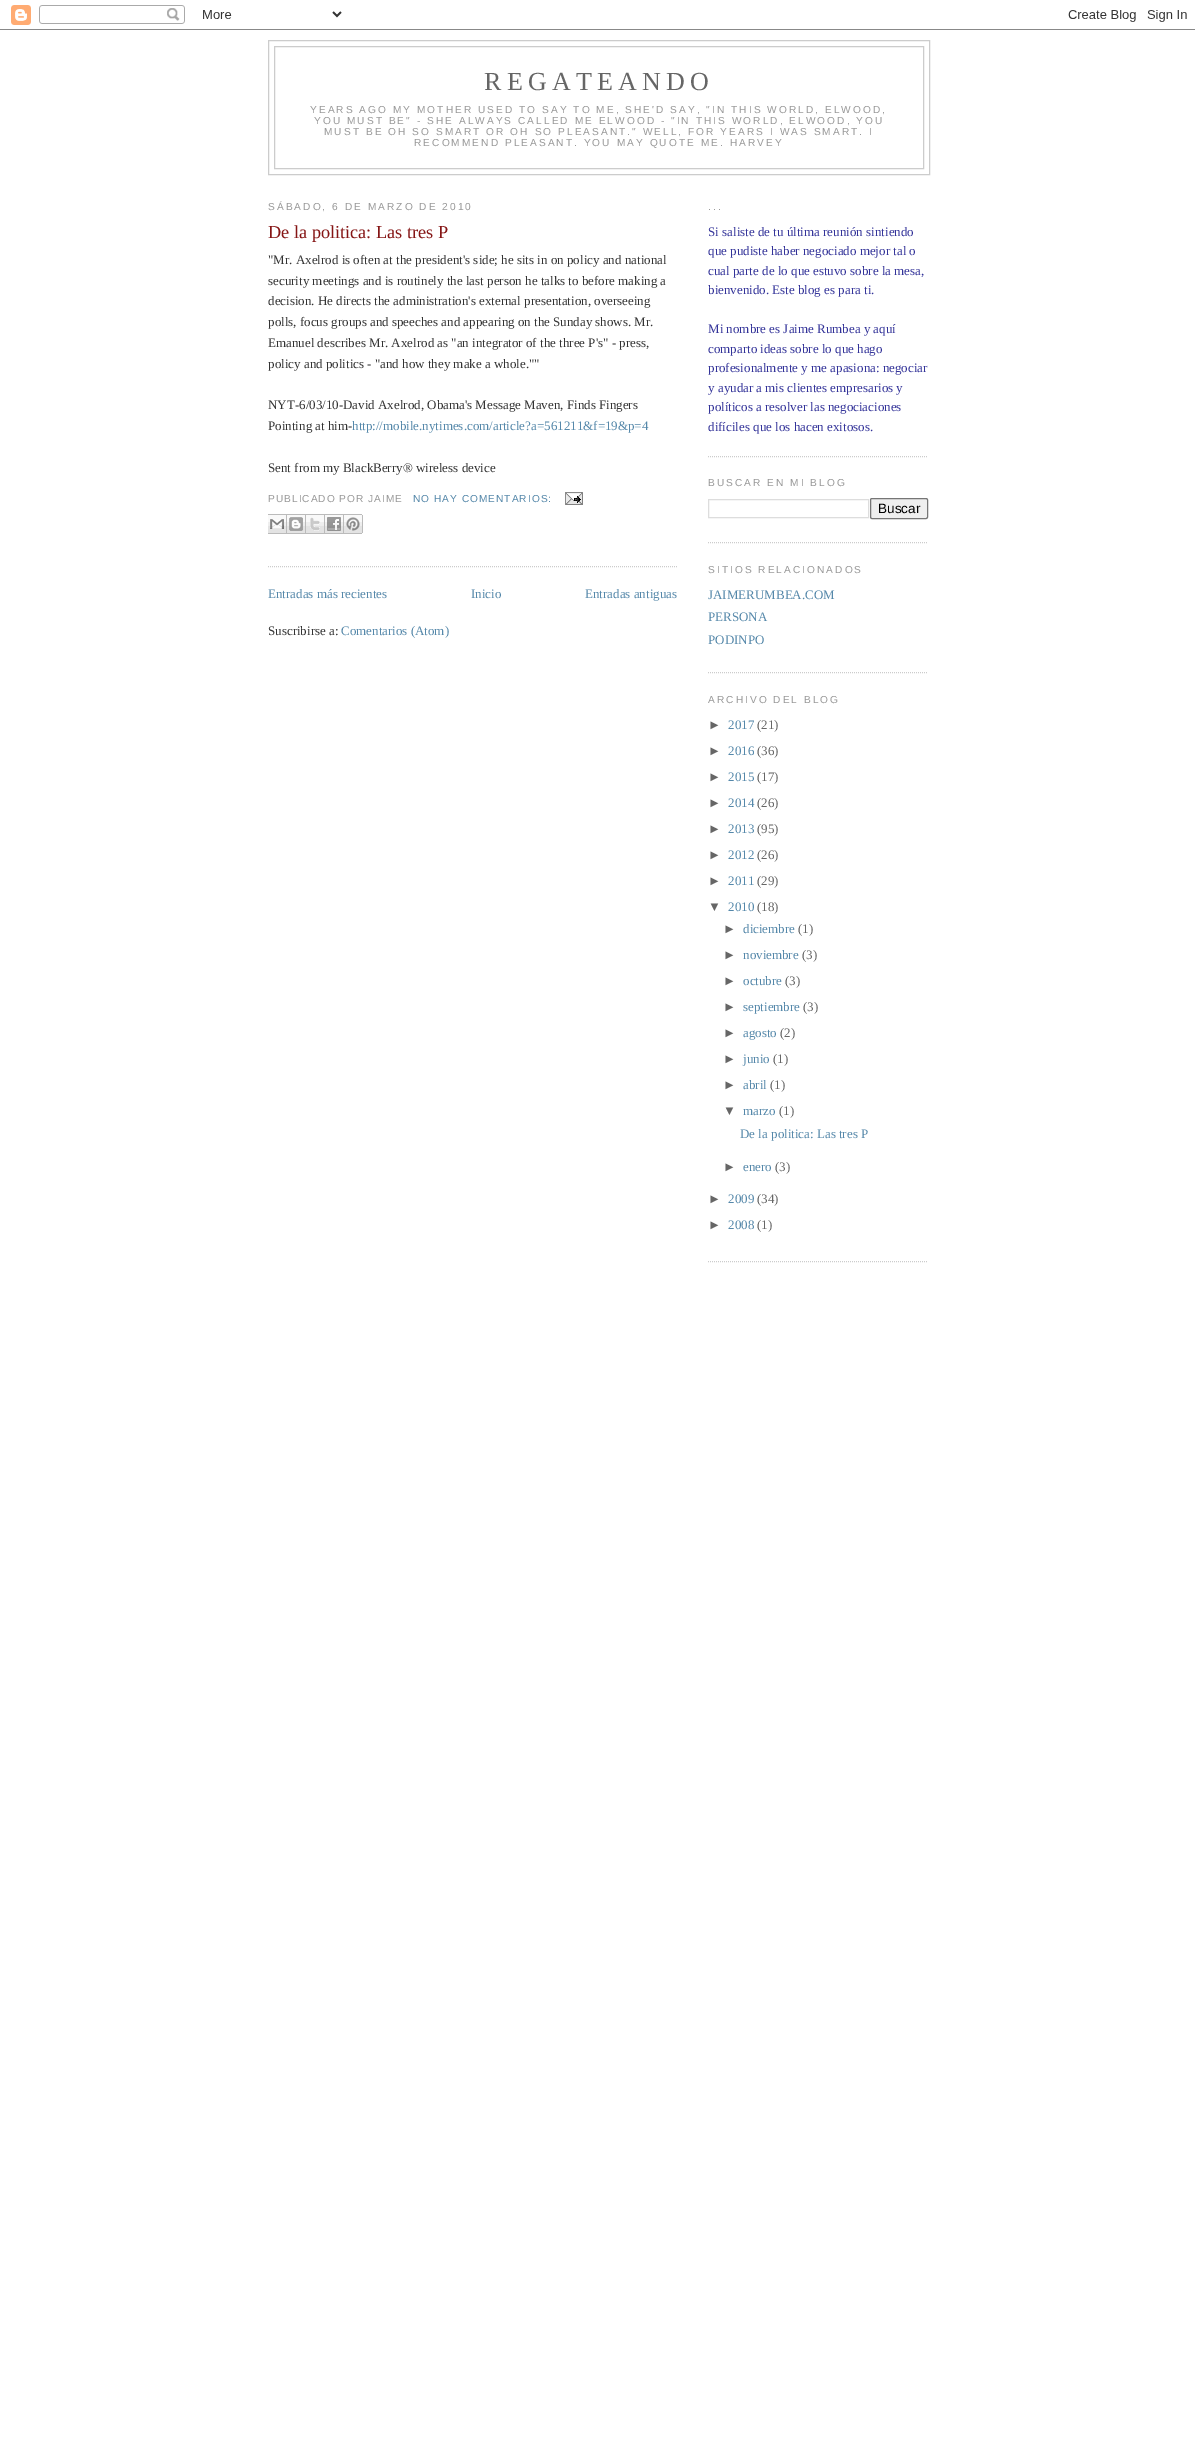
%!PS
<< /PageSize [1195 2454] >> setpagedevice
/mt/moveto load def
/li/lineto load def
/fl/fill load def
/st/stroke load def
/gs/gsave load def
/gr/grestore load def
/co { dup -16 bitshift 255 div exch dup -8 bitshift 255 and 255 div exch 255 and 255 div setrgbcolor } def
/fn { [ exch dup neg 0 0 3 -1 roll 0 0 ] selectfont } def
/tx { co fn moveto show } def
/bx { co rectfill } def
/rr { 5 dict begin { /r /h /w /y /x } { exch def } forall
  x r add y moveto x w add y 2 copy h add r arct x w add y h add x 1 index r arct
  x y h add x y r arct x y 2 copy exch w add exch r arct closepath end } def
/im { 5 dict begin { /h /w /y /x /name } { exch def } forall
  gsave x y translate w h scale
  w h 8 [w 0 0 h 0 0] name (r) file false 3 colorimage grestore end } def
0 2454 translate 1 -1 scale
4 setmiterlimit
0 0 1195 2454 16#FFFFFF bx
(media/1.raw) 0 5 1195 25 im
16#CCCCCC co
268.5 40.5 661 134 rectstroke
274.5 46.5 649 122 rectstroke
[1 1] 0 setdash
268 566.5 mt 678 566.5 li st
(media/2.raw) 565 492 18 13 im
(media/3.raw) 268 514 19 20 im
(media/4.raw) 287 514 19 20 im
(media/5.raw) 306 514 19 20 im
(media/6.raw) 325 514 19 20 im
(media/7.raw) 344 514 19 20 im
708 456.5 mt 928 456.5 li st
708 542.5 mt 928 542.5 li st
16#DDDDDD co
[] 0 setdash
708.5 499.5 160 18 rectstroke
16#EFEFEF co
870.5 498.5 57 20 1.5 rr gs fl gr
16#767676 co
st
16#CCCCCC co
[1 1] 0 setdash
708 672.5 mt 928 672.5 li st
708 1261.5 mt 928 1261.5 li st
/LiberationSerif-Regular 26 fn
16#666666 co
484 90 mt 5.25 0 (REGATEANDO) ashow
/LiberationSans-Regular 10.15 fn
16#999999 co
310 113 mt 2.03 0 (YEARS AGO MY MOTHER USED TO SAY TO ME, SHE'D SAY, "IN THIS WORLD, ELWOOD,) ashow
314 124 mt 2.03 0 (YOU MUST BE" - SHE ALWAYS CALLED ME ELWOOD - "IN THIS WORLD, ELWOOD, YOU) ashow
324 135 mt 2.03 0 (MUST BE OH SO SMART OR OH SO PLEASANT." WELL, FOR YEARS I WAS SMART. I) ashow
414 146 mt 2.03 0 (RECOMMEND PLEASANT. YOU MAY QUOTE ME. HARVEY) ashow
268 210 mt 2.03 0 (SÁBADO, 6 DE MARZO DE 2010) ashow
(De la politica: Las tres P) 268 238 /LiberationSerif-Regular 18.25 16#851515 tx
("Mr. Axelrod is often at the president's side; he sits in on policy and national) 268 264 /LiberationSerif-Regular 13 16#333333 tx
(security meetings and is routinely the last person he talks to before making a) 268 285 /LiberationSerif-Regular 13 16#333333 tx
(decision. He directs the administration's external presentation, overseeing) 268 305 /LiberationSerif-Regular 13 16#333333 tx
(polls, focus groups and speeches and appearing on the Sunday shows. Mr.) 268 326 /LiberationSerif-Regular 13 16#333333 tx
(Emanuel describes Mr. Axelrod as "an integrator of the three P's" - press,) 268 347 /LiberationSerif-Regular 13 16#333333 tx
(policy and politics - "and how they make a whole."") 268 368 /LiberationSerif-Regular 13 16#333333 tx
(NYT-6/03/10-David Axelrod, Obama's Message Maven, Finds Fingers) 268 409 /LiberationSerif-Regular 13 16#333333 tx
(Pointing at him-) 268 430 /LiberationSerif-Regular 13 16#333333 tx
(http://mobile.nytimes.com/article?a=561211&f=19&p=4) 352 430 /LiberationSerif-Regular 13 16#5588AA tx
(Sent from my BlackBerry® wireless device) 268 472 /LiberationSerif-Regular 13 16#333333 tx
/LiberationSans-Regular 10.15 fn
16#999999 co
268 502 mt 1 0 (PUBLICADO POR JAIME) ashow
16#5588AA co
413 502 mt 1 0 (NO HAY COMENTARIOS:) ashow
(Entradas más recientes) 268 598 /LiberationSerif-Regular 13 16#5588AA tx
(Inicio) 471 598 /LiberationSerif-Regular 13 16#5588AA tx
(Entradas antiguas) 585 598 /LiberationSerif-Regular 13 16#5588AA tx
(Suscribirse a:) 268 635 /LiberationSerif-Regular 13 16#333333 tx
(Comentarios \(Atom\)) 341 635 /LiberationSerif-Regular 13 16#5588AA tx
/LiberationSans-Regular 10.15 fn
16#999999 co
708 210 mt 2.03 0 (...) ashow
(Si saliste de tu última reunión sintiendo) 708 236 /LiberationSerif-Regular 13 16#333399 tx
(que pudiste haber negociado mejor tal o) 708 255 /LiberationSerif-Regular 13 16#333399 tx
(cual parte de lo que estuvo sobre la mesa,) 708 275 /LiberationSerif-Regular 13 16#333399 tx
(bienvenido. Este blog es para ti.) 708 294 /LiberationSerif-Regular 13 16#333399 tx
(Mi nombre es Jaime Rumbea y aquí) 708 333 /LiberationSerif-Regular 13 16#333399 tx
(comparto ideas sobre lo que hago) 708 353 /LiberationSerif-Regular 13 16#333399 tx
(profesionalmente y me apasiona: negociar) 708 372 /LiberationSerif-Regular 13 16#333399 tx
gs
708 185 220 1096 rectclip
(y ayudar a mis clientes empresarios y) 708 392 /LiberationSerif-Regular 13 16#333399 tx
gr
(políticos a resolver las negociaciones) 708 411 /LiberationSerif-Regular 13 16#333399 tx
(difíciles que los hacen exitosos.) 708 431 /LiberationSerif-Regular 13 16#333399 tx
/LiberationSans-Regular 10.15 fn
16#999999 co
708 486 mt 2.03 0 (BUSCAR EN MI BLOG) ashow
(Buscar) 878 513 /LiberationSans-Regular 13.5 16#000000 tx
/LiberationSans-Regular 10.15 fn
16#999999 co
708 573 mt 2.03 0 (SITIOS RELACIONADOS) ashow
(JAIMERUMBEA.COM) 708 599 /LiberationSerif-Regular 13 16#5588AA tx
(PERSONA) 708 621 /LiberationSerif-Regular 13 16#5588AA tx
(PODINPO) 708 644 /LiberationSerif-Regular 13 16#5588AA tx
/LiberationSans-Regular 10.15 fn
16#999999 co
708 703 mt 2.03 0 (ARCHIVO DEL BLOG) ashow
(►) 708 729 /LiberationSans-Regular 13 16#666666 tx
(2017) 728 729 /LiberationSerif-Regular 13 16#5588AA tx
(\(21\)) 757 729 /LiberationSerif-Regular 13 16#666666 tx
(►) 708 755 /LiberationSans-Regular 13 16#666666 tx
(2016) 728 755 /LiberationSerif-Regular 13 16#5588AA tx
(\(36\)) 757 755 /LiberationSerif-Regular 13 16#666666 tx
(►) 708 781 /LiberationSans-Regular 13 16#666666 tx
(2015) 728 781 /LiberationSerif-Regular 13 16#5588AA tx
(\(17\)) 757 781 /LiberationSerif-Regular 13 16#666666 tx
(►) 708 807 /LiberationSans-Regular 13 16#666666 tx
(2014) 728 807 /LiberationSerif-Regular 13 16#5588AA tx
(\(26\)) 757 807 /LiberationSerif-Regular 13 16#666666 tx
(►) 708 833 /LiberationSans-Regular 13 16#666666 tx
(2013) 728 833 /LiberationSerif-Regular 13 16#5588AA tx
(\(95\)) 757 833 /LiberationSerif-Regular 13 16#666666 tx
(►) 708 859 /LiberationSans-Regular 13 16#666666 tx
(2012) 728 859 /LiberationSerif-Regular 13 16#5588AA tx
(\(26\)) 757 859 /LiberationSerif-Regular 13 16#666666 tx
(►) 708 885 /LiberationSans-Regular 13 16#666666 tx
(2011) 728 885 /LiberationSerif-Regular 13 16#5588AA tx
(\(29\)) 757 885 /LiberationSerif-Regular 13 16#666666 tx
(▼) 708 911 /LiberationSans-Regular 13 16#666666 tx
(2010) 728 911 /LiberationSerif-Regular 13 16#5588AA tx
(\(18\)) 757 911 /LiberationSerif-Regular 13 16#666666 tx
(►) 723 933 /LiberationSans-Regular 13 16#666666 tx
(diciembre) 743 933 /LiberationSerif-Regular 13 16#5588AA tx
(\(1\)) 798 933 /LiberationSerif-Regular 13 16#666666 tx
(►) 723 959 /LiberationSans-Regular 13 16#666666 tx
(noviembre) 743 959 /LiberationSerif-Regular 13 16#5588AA tx
(\(3\)) 802 959 /LiberationSerif-Regular 13 16#666666 tx
(►) 723 985 /LiberationSans-Regular 13 16#666666 tx
(octubre) 743 985 /LiberationSerif-Regular 13 16#5588AA tx
(\(3\)) 785 985 /LiberationSerif-Regular 13 16#666666 tx
(►) 723 1011 /LiberationSans-Regular 13 16#666666 tx
(septiembre) 743 1011 /LiberationSerif-Regular 13 16#5588AA tx
(\(3\)) 803 1011 /LiberationSerif-Regular 13 16#666666 tx
(►) 723 1037 /LiberationSans-Regular 13 16#666666 tx
(agosto) 743 1037 /LiberationSerif-Regular 13 16#5588AA tx
(\(2\)) 780 1037 /LiberationSerif-Regular 13 16#666666 tx
(►) 723 1063 /LiberationSans-Regular 13 16#666666 tx
(junio) 743 1063 /LiberationSerif-Regular 13 16#5588AA tx
(\(1\)) 773 1063 /LiberationSerif-Regular 13 16#666666 tx
(►) 723 1089 /LiberationSans-Regular 13 16#666666 tx
(abril) 743 1089 /LiberationSerif-Regular 13 16#5588AA tx
(\(1\)) 770 1089 /LiberationSerif-Regular 13 16#666666 tx
(▼) 723 1115 /LiberationSans-Regular 13 16#666666 tx
(marzo) 743 1115 /LiberationSerif-Regular 13 16#5588AA tx
(\(1\)) 779 1115 /LiberationSerif-Regular 13 16#666666 tx
(De la politica: Las tres P) 740 1138 /LiberationSerif-Regular 13 16#5588AA tx
(►) 723 1171 /LiberationSans-Regular 13 16#666666 tx
(enero) 743 1171 /LiberationSerif-Regular 13 16#5588AA tx
(\(3\)) 775 1171 /LiberationSerif-Regular 13 16#666666 tx
(►) 708 1203 /LiberationSans-Regular 13 16#666666 tx
(2009) 728 1203 /LiberationSerif-Regular 13 16#5588AA tx
(\(34\)) 757 1203 /LiberationSerif-Regular 13 16#666666 tx
(►) 708 1229 /LiberationSans-Regular 13 16#666666 tx
(2008) 728 1229 /LiberationSerif-Regular 13 16#5588AA tx
(\(1\)) 757 1229 /LiberationSerif-Regular 13 16#666666 tx
showpage
